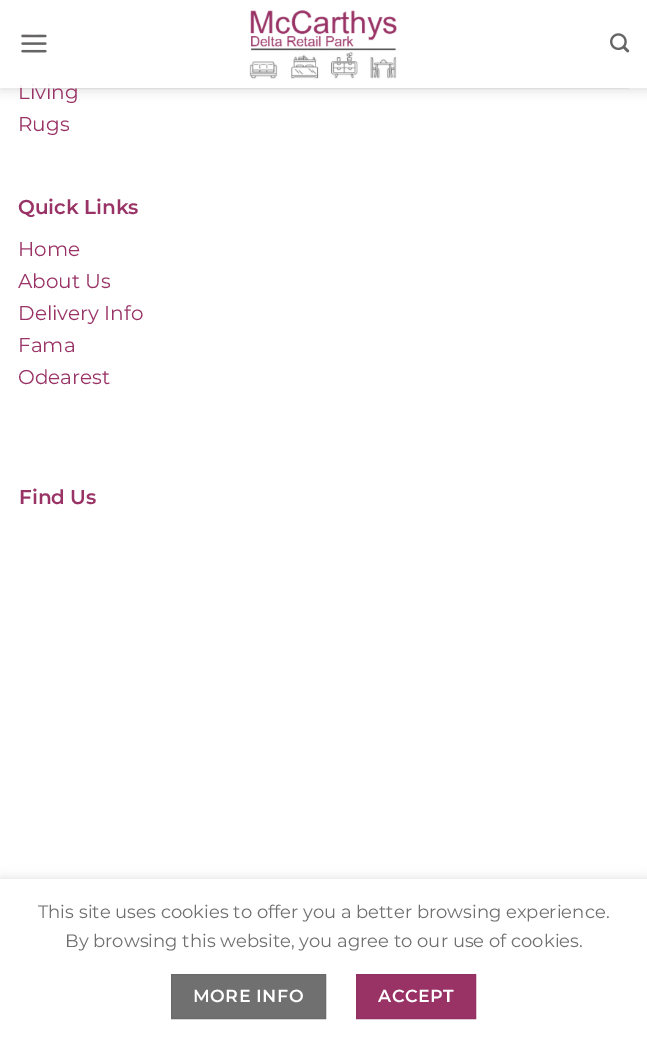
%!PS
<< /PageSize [647 1037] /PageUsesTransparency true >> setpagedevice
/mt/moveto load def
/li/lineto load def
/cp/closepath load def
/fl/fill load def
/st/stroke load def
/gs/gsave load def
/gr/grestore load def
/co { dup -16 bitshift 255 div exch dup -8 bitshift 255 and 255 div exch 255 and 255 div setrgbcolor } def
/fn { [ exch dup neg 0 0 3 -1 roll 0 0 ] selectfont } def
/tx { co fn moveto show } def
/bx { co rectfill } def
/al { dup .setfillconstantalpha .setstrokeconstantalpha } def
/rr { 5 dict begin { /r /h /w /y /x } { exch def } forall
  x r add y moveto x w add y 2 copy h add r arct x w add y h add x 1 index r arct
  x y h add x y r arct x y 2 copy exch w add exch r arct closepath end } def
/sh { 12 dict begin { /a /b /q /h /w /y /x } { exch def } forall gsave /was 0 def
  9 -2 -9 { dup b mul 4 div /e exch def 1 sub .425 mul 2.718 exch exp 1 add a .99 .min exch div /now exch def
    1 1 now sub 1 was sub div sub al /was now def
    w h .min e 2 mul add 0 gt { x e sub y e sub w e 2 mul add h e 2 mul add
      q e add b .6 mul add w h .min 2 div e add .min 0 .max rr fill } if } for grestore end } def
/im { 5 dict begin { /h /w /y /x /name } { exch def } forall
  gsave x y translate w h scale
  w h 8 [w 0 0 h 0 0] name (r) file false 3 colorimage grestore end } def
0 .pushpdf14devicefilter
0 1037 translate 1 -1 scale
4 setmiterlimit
0 0 647 1037 16#FFFFFF bx
gs
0 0 mt 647 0 li 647 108 li 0 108 li cp 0 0 mt 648 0 li 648 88 li 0 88 li cp eoclip newpath
16#000000 co
1 1 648 88 0 6 .15 sh
gr
(media/1.raw) 21 34 26 19 im
(media/2.raw) 249 10 148 69 im
(media/3.raw) 610 33 20 20 im
0.1 al
19 88 610 1 16#707070 bx
1 al
16#000000 co
0 879 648 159 0 5.5 .14 sh
0 879 647 158 16#FFFFFF bx
16#707070 co
171.5 974.5 mt 325.5 974.5 li 325.5 1018.5 li 171.5 1018.5 li cp gs fl gr
16#6A6A6A co
st
16#993366 co
356.5 974.5 mt 475.5 974.5 li 475.5 1018.5 li 356.5 1018.5 li cp gs fl gr
16#913061 co
st
(Living) 18 99 /Montserrat-Regular 20 16#993366 tx
0.9 al
0 84 647 4 16#FFFFFF bx
1 al
(Rugs) 18 131 /Montserrat-Regular 20 16#993366 tx
(Quick Links) 18 214 /Montserrat-SemiBold 20 16#993366 tx
(Home) 18 256 /Montserrat-Regular 20 16#993366 tx
(About Us) 18 288 /Montserrat-Regular 20 16#993366 tx
(Delivery Info) 18 320 /Montserrat-Regular 20 16#993366 tx
(Fama) 18 352 /Montserrat-Regular 20 16#993366 tx
(Odearest) 18 384 /Montserrat-Regular 20 16#993366 tx
(Find Us) 19 504 /Montserrat-SemiBold 20 16#993366 tx
(This site uses cookies to offer you a better browsing experience.) 38 918 /Montserrat-Regular 18 16#707070 tx
(By browsing this website, you agree to our use of cookies.) 65 947 /Montserrat-Regular 18 16#707070 tx
/Montserrat-SemiBold 17.5 fn
16#FFFFFF co
193 1002 mt .5 0 (MORE INFO) ashow
378 1002 mt .5 0 (ACCEPT) ashow
.poppdf14devicefilter showpage
